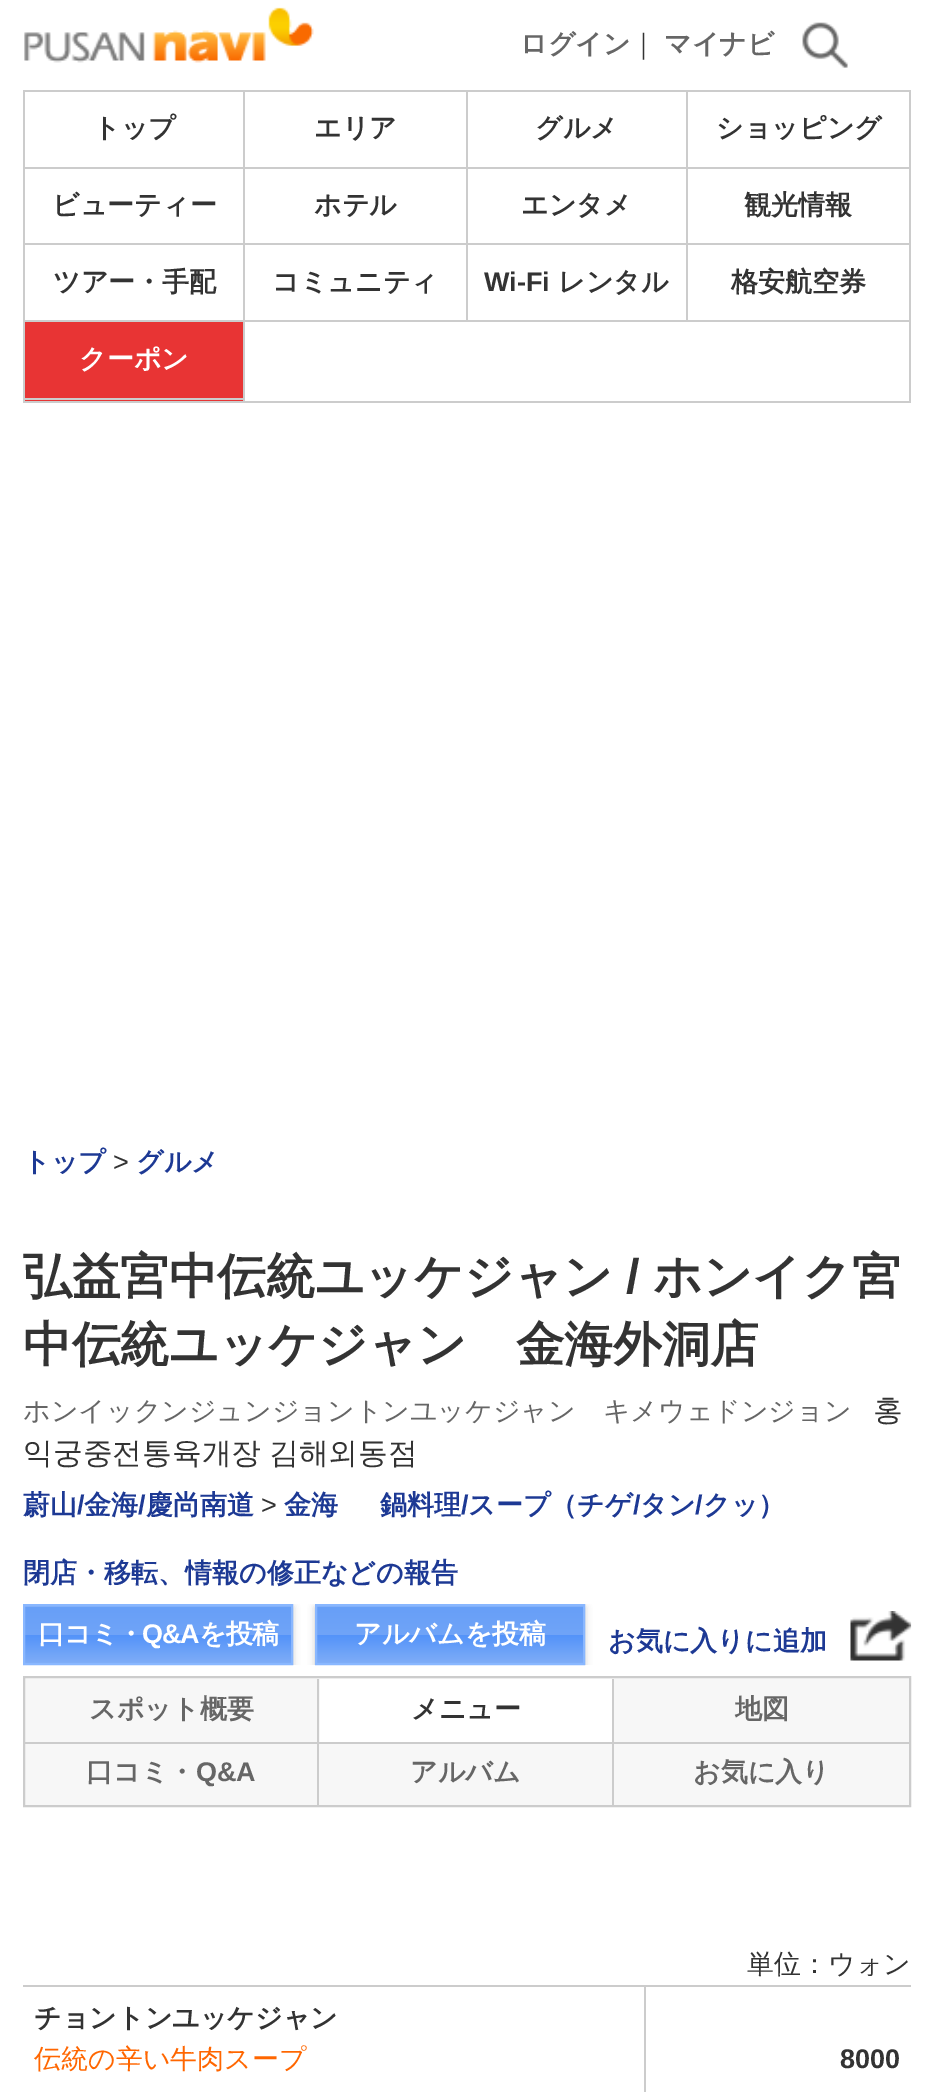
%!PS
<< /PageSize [933 2092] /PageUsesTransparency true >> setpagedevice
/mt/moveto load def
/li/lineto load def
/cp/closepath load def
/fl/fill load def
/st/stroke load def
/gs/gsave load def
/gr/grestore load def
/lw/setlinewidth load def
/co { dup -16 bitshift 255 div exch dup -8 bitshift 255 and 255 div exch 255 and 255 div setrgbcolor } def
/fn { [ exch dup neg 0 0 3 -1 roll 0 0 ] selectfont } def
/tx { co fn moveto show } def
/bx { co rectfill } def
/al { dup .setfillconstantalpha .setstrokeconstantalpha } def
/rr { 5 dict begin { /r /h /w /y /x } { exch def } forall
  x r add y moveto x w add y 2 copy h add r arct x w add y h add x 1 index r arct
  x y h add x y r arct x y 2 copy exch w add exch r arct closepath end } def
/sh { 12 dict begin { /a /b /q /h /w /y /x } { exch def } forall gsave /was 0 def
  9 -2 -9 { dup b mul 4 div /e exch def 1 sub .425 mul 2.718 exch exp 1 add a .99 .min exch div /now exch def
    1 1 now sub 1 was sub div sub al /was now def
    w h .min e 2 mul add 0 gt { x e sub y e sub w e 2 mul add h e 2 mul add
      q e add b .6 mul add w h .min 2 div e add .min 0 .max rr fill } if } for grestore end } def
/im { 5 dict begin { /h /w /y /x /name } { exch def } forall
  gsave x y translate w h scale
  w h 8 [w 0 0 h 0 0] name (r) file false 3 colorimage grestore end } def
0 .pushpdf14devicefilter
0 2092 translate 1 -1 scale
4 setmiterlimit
0 0 933 2092 16#FFFFFF bx
(media/1.raw) 24 7 290 56 im
(media/2.raw) 802 22 46 46 im
23 90 888 2 16#CCCCCC bx
23 401 888 2 16#CCCCCC bx
909 92 2 309 16#CCCCCC bx
23 92 2 309 16#CCCCCC bx
243 92 2 309 16#CCCCCC bx
25 167 220 2 16#CCCCCC bx
466 92 2 230 16#CCCCCC bx
245 167 223 2 16#CCCCCC bx
686 92 2 230 16#CCCCCC bx
468 167 441 2 16#CCCCCC bx
25 243 884 2 16#CCCCCC bx
25 320 884 2 16#CCCCCC bx
25 322 218 79 16#E83434 bx
25 398 220 2 16#CCCCCC bx
16#F7F7F7 co
24 1677 mt 910 1677 li 910 1806 li 24 1806 li cp gs fl gr
16#CCCCCC co
2 lw
st
gs
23 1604 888 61 rectclip
16#000000 co
23 1607 270 60 0 3.5 .2 sh
gr
gs 23 1606 mt 293 1606 li 293 1607 li 23 1607 li cp clip newpath
<< /ShadingType 2 /ColorSpace /DeviceRGB /Coords [25 1550 25 1607] /Extend [true true] /Function << /FunctionType 3 /Domain [0 1] /Functions [<< /FunctionType 2 /Domain [0 1] /C0 [.404 .624 .969] /C1 [.439 .643 .969] /N 1 >> << /FunctionType 2 /Domain [0 1] /C0 [.325 .576 .976] /C1 [.498 .678 .969] /N 1 >>] /Bounds [.5] /Encode [0 1 0 1] >> >> shfill gr
gs 25 1607 mt 291 1607 li 291 1663 li 25 1663 li cp clip newpath
<< /ShadingType 2 /ColorSpace /DeviceRGB /Coords [25 1607 25 1663] /Extend [true true] /Function << /FunctionType 3 /Domain [0 1] /Functions [<< /FunctionType 2 /Domain [0 1] /C0 [.404 .624 .969] /C1 [.439 .643 .969] /N 1 >> << /FunctionType 2 /Domain [0 1] /C0 [.325 .576 .976] /C1 [.498 .678 .969] /N 1 >>] /Bounds [.5] /Encode [0 1 0 1] >> >> shfill gr
16#89B7FF co
24 1605 268 59 rectstroke
gs
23 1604 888 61 rectclip
16#000000 co
315 1607 270 60 0 3.5 .2 sh
gr
gs 315 1606 mt 585 1606 li 585 1607 li 315 1607 li cp clip newpath
<< /ShadingType 2 /ColorSpace /DeviceRGB /Coords [317 1550 317 1607] /Extend [true true] /Function << /FunctionType 3 /Domain [0 1] /Functions [<< /FunctionType 2 /Domain [0 1] /C0 [.404 .624 .969] /C1 [.439 .643 .969] /N 1 >> << /FunctionType 2 /Domain [0 1] /C0 [.325 .576 .976] /C1 [.498 .678 .969] /N 1 >>] /Bounds [.5] /Encode [0 1 0 1] >> >> shfill gr
gs 317 1607 mt 583 1607 li 583 1663 li 317 1663 li cp clip newpath
<< /ShadingType 2 /ColorSpace /DeviceRGB /Coords [317 1607 317 1663] /Extend [true true] /Function << /FunctionType 3 /Domain [0 1] /Functions [<< /FunctionType 2 /Domain [0 1] /C0 [.404 .624 .969] /C1 [.439 .643 .969] /N 1 >> << /FunctionType 2 /Domain [0 1] /C0 [.325 .576 .976] /C1 [.498 .678 .969] /N 1 >>] /Bounds [.5] /Encode [0 1 0 1] >> >> shfill gr
316 1605 268 59 rectstroke
(media/3.raw) 850 1611 62 50 im
317 1679 2 126 16#CCCCCC bx
25 1742 295 2 16#CCCCCC bx
612 1679 2 126 16#CCCCCC bx
320 1742 589 2 16#CCCCCC bx
320 1679 292 63 16#FFFFFF bx
23 1985 888 2 16#CCCCCC bx
644 1985 2 107 16#CCCCCC bx
(ログイン) 520 53 /WenQuanYiZenHei-Bold 27 16#666666 tx
(｜) 630 53 /WenQuanYiZenHei-Medium 27 16#333333 tx
(マイナビ) 664 53 /WenQuanYiZenHei-Bold 27 16#666666 tx
(トップ) 93 137 /WenQuanYiZenHei-Bold 27 16#333333 tx
(エリア) 314 137 /WenQuanYiZenHei-Bold 27 16#333333 tx
(グルメ) 535 137 /WenQuanYiZenHei-Bold 27 16#333333 tx
(ショッピング) 716 137 /WenQuanYiZenHei-Bold 27 16#333333 tx
(ビューティー) 52 214 /WenQuanYiZenHei-Bold 27 16#333333 tx
(ホテル) 314 214 /WenQuanYiZenHei-Bold 27 16#333333 tx
(エンタメ) 521 214 /WenQuanYiZenHei-Bold 27 16#333333 tx
(観光情報) 744 214 /WenQuanYiZenHei-Bold 27 16#333333 tx
(ツアー・手配) 53 291 /WenQuanYiZenHei-Bold 27 16#333333 tx
(コミュニティ) 272 291 /WenQuanYiZenHei-Bold 27 16#333333 tx
(Wi-Fi) 484 291 /LiberationSans-Bold 27 16#333333 tx
(レンタル) 558 291 /WenQuanYiZenHei-Bold 27 16#333333 tx
(格安航空券) 731 291 /WenQuanYiZenHei-Bold 27 16#333333 tx
(クーポン) 79 368 /WenQuanYiZenHei-Bold 27 16#FFFFFF tx
(トップ) 23 1171 /WenQuanYiZenHei-Bold 27 16#1D3994 tx
(>) 113 1171 /LiberationSans-Regular 27 16#333333 tx
(グルメ) 136 1171 /WenQuanYiZenHei-Bold 27 16#1D3994 tx
gs
23 0 888 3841 rectclip
(弘益宮中伝統ユッケジャン) 23 1293 /WenQuanYiZenHei-Bold 48.6 16#333333 tx
gr
(/) 626 1293 /LiberationSans-Bold 48.6 16#333333 tx
(ホンイク宮) 653 1293 /WenQuanYiZenHei-Bold 48.6 16#333333 tx
(中伝統ユッケジャン　金海外洞店) 23 1361 /WenQuanYiZenHei-Bold 48.6 16#333333 tx
(ホンイックンジュンジョントンユッケジャン　キメウェドンジョン) 23 1420 /WenQuanYiZenHei-Medium 27 16#666666 tx
(홍) 873 1420 /WenQuanYiZenHei-Medium 29.75 16#333333 tx
23 1463 mt -1 0 32 (익궁중전통육개장 김해외동점) widthshow
(蔚山) 23 1514 /WenQuanYiZenHei-Bold 27 16#1D3994 tx
(/) 77 1514 /LiberationSans-Bold 27 16#1D3994 tx
(金海) 84 1514 /WenQuanYiZenHei-Bold 27 16#1D3994 tx
(/) 138 1514 /LiberationSans-Bold 27 16#1D3994 tx
(慶尚南道) 146 1514 /WenQuanYiZenHei-Bold 27 16#1D3994 tx
(>) 261 1514 /LiberationSans-Regular 27 16#333333 tx
(金海) 284 1514 /WenQuanYiZenHei-Bold 27 16#1D3994 tx
(鍋料理) 380 1514 /WenQuanYiZenHei-Bold 27 16#1D3994 tx
(/) 461 1514 /LiberationSans-Bold 27 16#1D3994 tx
(スープ（チゲ) 468 1514 /WenQuanYiZenHei-Bold 27 16#1D3994 tx
(/) 633 1514 /LiberationSans-Bold 27 16#1D3994 tx
(タン) 640 1514 /WenQuanYiZenHei-Bold 27 16#1D3994 tx
(/) 695 1514 /LiberationSans-Bold 27 16#1D3994 tx
(クッ）) 703 1514 /WenQuanYiZenHei-Bold 27 16#1D3994 tx
(閉店・移転、情報の修正などの報告) 23 1582 /WenQuanYiZenHei-Bold 27 16#1D3994 tx
16#FFFFFF co
38 1643 mt -1 0 (口コミ・) ashow
/LiberationSans-Bold 27 fn
142 1643 mt -1 0 (Q&A) ashow
/WenQuanYiZenHei-Bold 27 fn
199 1643 mt -1 0 (を投稿) ashow
(アルバムを投稿) 354 1643 /WenQuanYiZenHei-Bold 27 16#FFFFFF tx
(お気に入りに追加) 608 1650 /WenQuanYiZenHei-Bold 27 16#1D3994 tx
(スポット概要) 89 1718 /WenQuanYiZenHei-Bold 27 16#666666 tx
(メニュー) 411 1718 /WenQuanYiZenHei-Bold 27 16#333333 tx
(地図) 735 1718 /WenQuanYiZenHei-Bold 27 16#666666 tx
(口コミ・) 86 1781 /WenQuanYiZenHei-Bold 27 16#666666 tx
(Q&A) 196 1781 /LiberationSans-Bold 27 16#666666 tx
(アルバム) 410 1781 /WenQuanYiZenHei-Bold 27 16#666666 tx
(お気に入り) 693 1781 /WenQuanYiZenHei-Bold 27 16#666666 tx
(単位：ウォン) 747 1973 /WenQuanYiZenHei-Medium 27 16#333333 tx
(チョントンユッケジャン) 34 2027 /WenQuanYiZenHei-Bold 27 16#333333 tx
(伝統の辛い牛肉スープ) 34 2068 /WenQuanYiZenHei-Medium 27 16#FF6600 tx
(8000) 840 2068 /LiberationSans-Bold 27 16#333333 tx
.poppdf14devicefilter showpage
